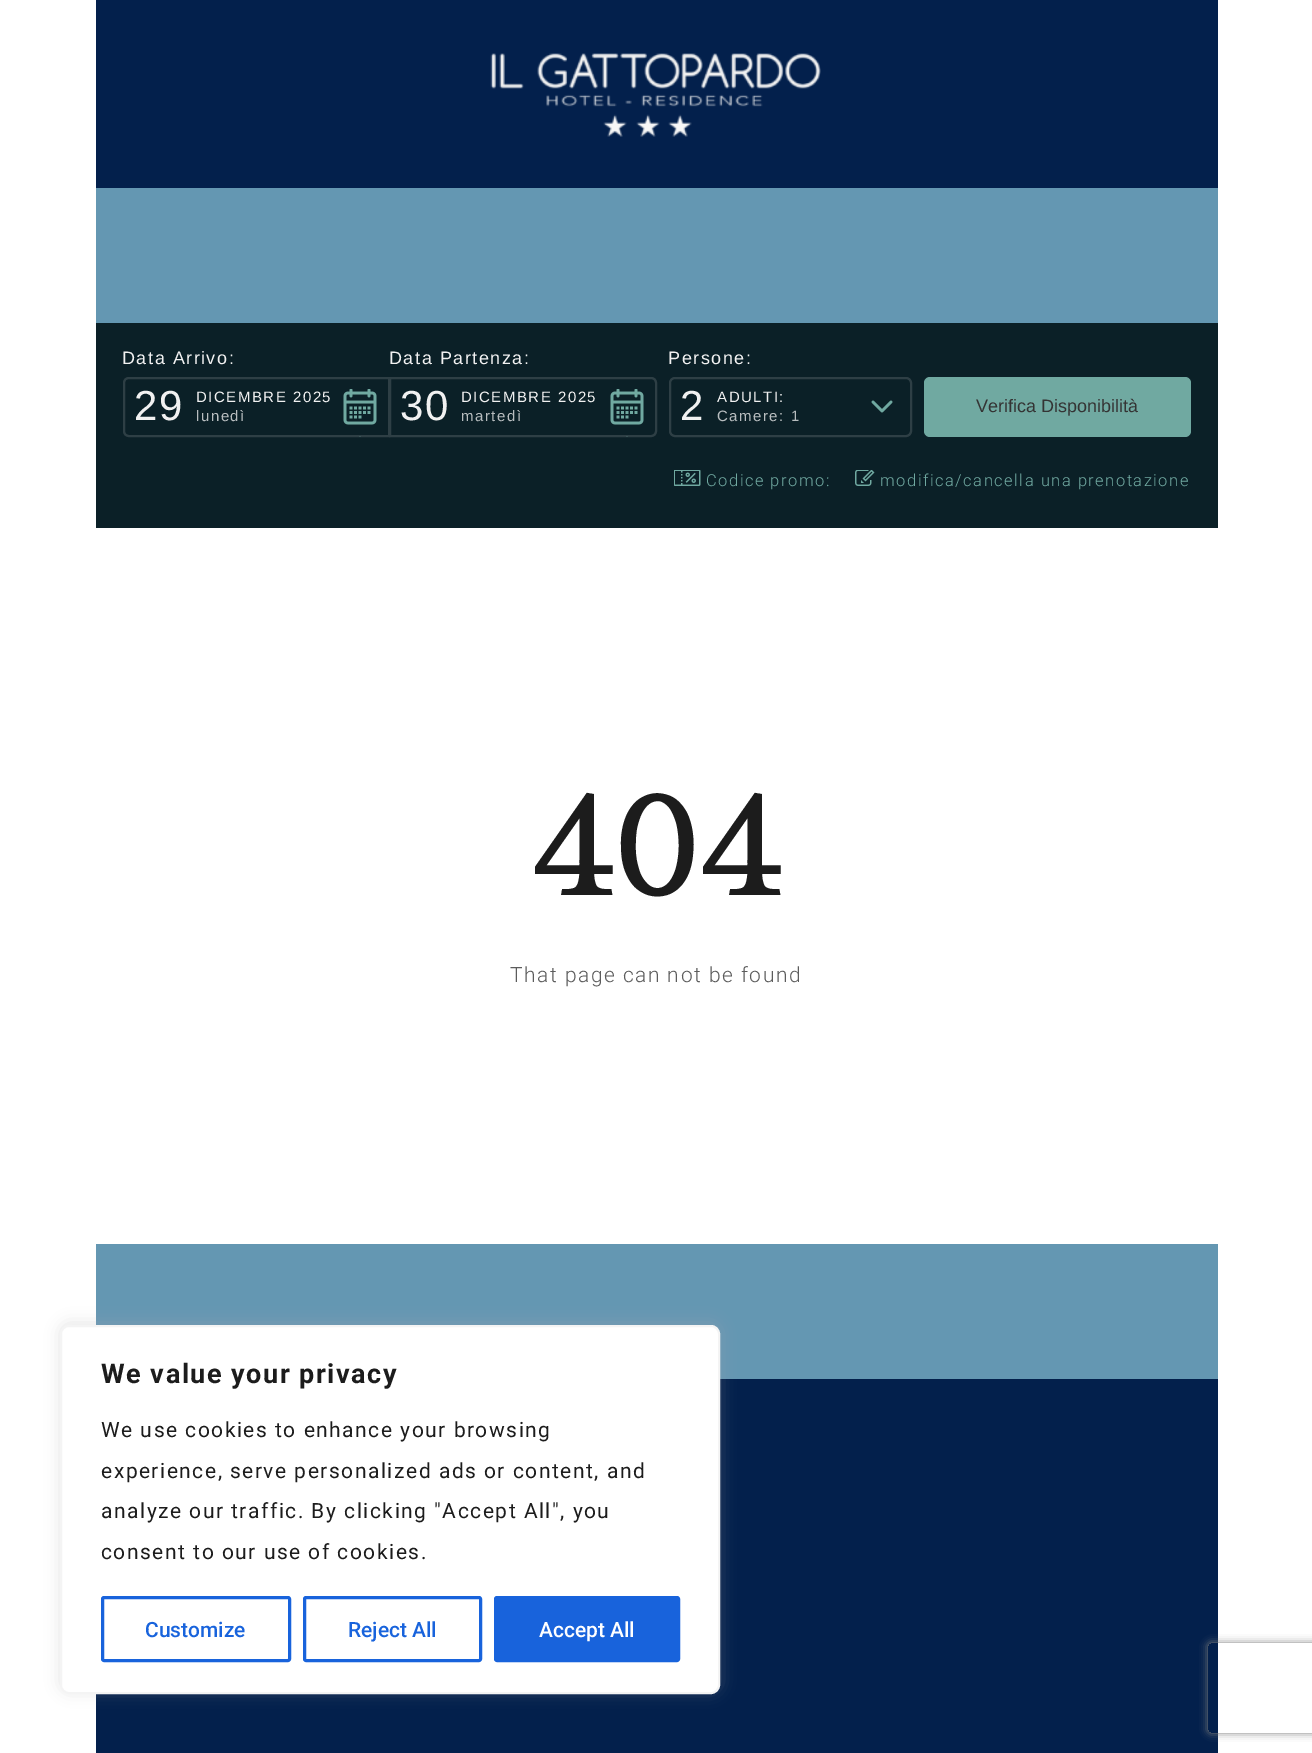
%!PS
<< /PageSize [1312 1753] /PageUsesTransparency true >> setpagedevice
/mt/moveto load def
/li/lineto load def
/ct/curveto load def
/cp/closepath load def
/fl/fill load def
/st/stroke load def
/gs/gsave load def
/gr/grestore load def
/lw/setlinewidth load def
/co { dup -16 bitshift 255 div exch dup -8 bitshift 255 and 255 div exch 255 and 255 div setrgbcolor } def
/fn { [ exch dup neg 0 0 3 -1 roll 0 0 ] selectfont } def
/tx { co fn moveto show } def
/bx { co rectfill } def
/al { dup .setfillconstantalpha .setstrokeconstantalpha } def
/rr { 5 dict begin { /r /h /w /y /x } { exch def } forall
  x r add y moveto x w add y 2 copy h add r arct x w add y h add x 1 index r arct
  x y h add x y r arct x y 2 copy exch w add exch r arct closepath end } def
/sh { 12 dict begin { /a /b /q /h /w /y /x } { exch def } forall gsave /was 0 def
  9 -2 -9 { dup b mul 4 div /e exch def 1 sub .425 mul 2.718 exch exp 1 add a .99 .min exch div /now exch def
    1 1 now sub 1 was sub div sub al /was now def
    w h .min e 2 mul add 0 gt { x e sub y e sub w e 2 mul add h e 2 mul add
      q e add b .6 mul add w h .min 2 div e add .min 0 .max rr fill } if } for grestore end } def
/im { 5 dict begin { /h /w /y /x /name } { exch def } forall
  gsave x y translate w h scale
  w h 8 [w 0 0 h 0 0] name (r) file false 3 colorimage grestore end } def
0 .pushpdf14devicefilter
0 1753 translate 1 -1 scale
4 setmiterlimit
0 0 1312 1753 16#FFFFFF bx
96 0 1122 188 16#03204C bx
(media/1.raw) 490 53 331 84 im
96 188 1122 135 16#6497B2 bx
96 323 1122 205 16#0B2027 bx
16#2E3F45 co
2 lw
129 378 mt 389 378 li 389 436 li 129 436 li 126 436 124 434 124 431 ct 124 383 li 124 380 126 378 129 378 ct cp st
(media/2.raw) 343 389 34 36 im
16#70A9A1 co
360.5 437 mt 359.5 437 li 360 436.5 li cp fl
16#0B2027 co
390 378 mt 651 378 li 654 378 656 380 656 383 ct 656 431 li 656 434 654 436 651 436 ct 390 436 li cp gs fl gr
16#2E3F45 co
st
(media/2.raw) 610 389 34 36 im
16#70A9A1 co
627.5 437 mt 626.5 437 li 627 436.5 li cp fl
16#2E3F45 co
670 378 241 58 5 rr st
(media/3.raw) 871 400 22 13 im
16#70A9A1 co
924 377 267 60 6 rr fl
(media/4.raw) 674 470 27 16 im
(media/5.raw) 855 470 20 16 im
96 1244 1122 135 16#6497B2 bx
96 1379 1122 374 16#03204C bx
16#ACABAB co
60 1323 660 369 9 7.5 .3 sh
16#FFFFFF co
61 1326 658 367 8 rr gs fl gr
16#F4F4F4 co
st
16#1863DC co
3 lw
102.5 1597.5 187 63 1.5 rr st
304.5 1597.5 176 63 1.5 rr st
495.5 1597.5 183 63 1.5 rr gs fl gr
st
gs
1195 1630 mt 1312 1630 li 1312 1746 li 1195 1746 li cp 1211 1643 mt 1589 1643 li 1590.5 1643 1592 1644.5 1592 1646 ct 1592 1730 li 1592 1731.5 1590.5 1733 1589 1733 ct 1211 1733 li 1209.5 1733 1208 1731.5 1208 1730 ct 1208 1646 li 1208 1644.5 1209.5 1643 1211 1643 ct cp eoclip newpath
16#808080 co
1208 1643 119 90 3 4 1 sh
gr
/LiberationSans-Regular 18 fn
16#F1F1F1 co
122 364 mt 1.5 0 (Data Arrivo:) ashow
/LiberationSans-Regular 42 fn
134 420 mt 1.5 0 (29) ashow
/LiberationSans-Regular 15 fn
196 402 mt 1.5 0 (DICEMBRE 2025) ashow
16#B8BDBF co
196 421 mt 1.5 0 (lunedì) ashow
/LiberationSans-Regular 18 fn
16#F1F1F1 co
389 364 mt 1.5 0 (Data Partenza:) ashow
/LiberationSans-Regular 42 fn
400 420 mt 1.5 0 (30) ashow
/LiberationSans-Regular 15 fn
461 402 mt 1.5 0 (DICEMBRE 2025) ashow
16#B8BDBF co
461 421 mt 1.5 0 (martedì) ashow
/LiberationSans-Regular 18 fn
16#F1F1F1 co
668 364 mt 1.5 0 (Persone:) ashow
/LiberationSans-Regular 42 fn
680 420 mt 1.5 0 (2) ashow
/LiberationSans-Regular 15 fn
717 402 mt 1.5 0 (ADULTI:) ashow
16#B8BDBF co
717 421 mt 1.5 0 (Camere: 1) ashow
(Verifica Disponibilità) 976 412 /LiberationSans-Regular 18 16#343434 tx
/Roboto-Light 16.5 fn
16#70A9A1 co
706 486 mt 1.5 0 (Codice promo:) ashow
880 486 mt 1.5 0 (modifica/cancella una prenotazione) ashow
/GildaDisplay-Bold 150 fn
16#1C1C1C co
530 895 mt 1.5 0 (404) ashow
/Roboto-Light 21 fn
16#5C5C5C co
510 982 mt 1.5 0 (That page can not be found) ashow
/Roboto-Bold 27 fn
16#1C1C1C co
101 1383 mt 1.5 0 (We value your privacy) ashow
/Roboto-Regular 21 fn
101 1437 mt 1.5 0 (We use cookies to enhance your browsing) ashow
101 1478 mt 1.5 0 (experience, serve personalized ads or content, and) ashow
101 1518 mt 1.5 0 (analyze our traffic. By clicking "Accept All", you) ashow
101 1559 mt 1.5 0 (consent to our use of cookies.) ashow
(Customize) 145 1637 /Roboto-Medium 21 16#1863DC tx
(Reject All) 348 1637 /Roboto-Medium 21 16#1863DC tx
(Accept All) 539 1637 /Roboto-Medium 21 16#FFFFFF tx
.poppdf14devicefilter showpage
